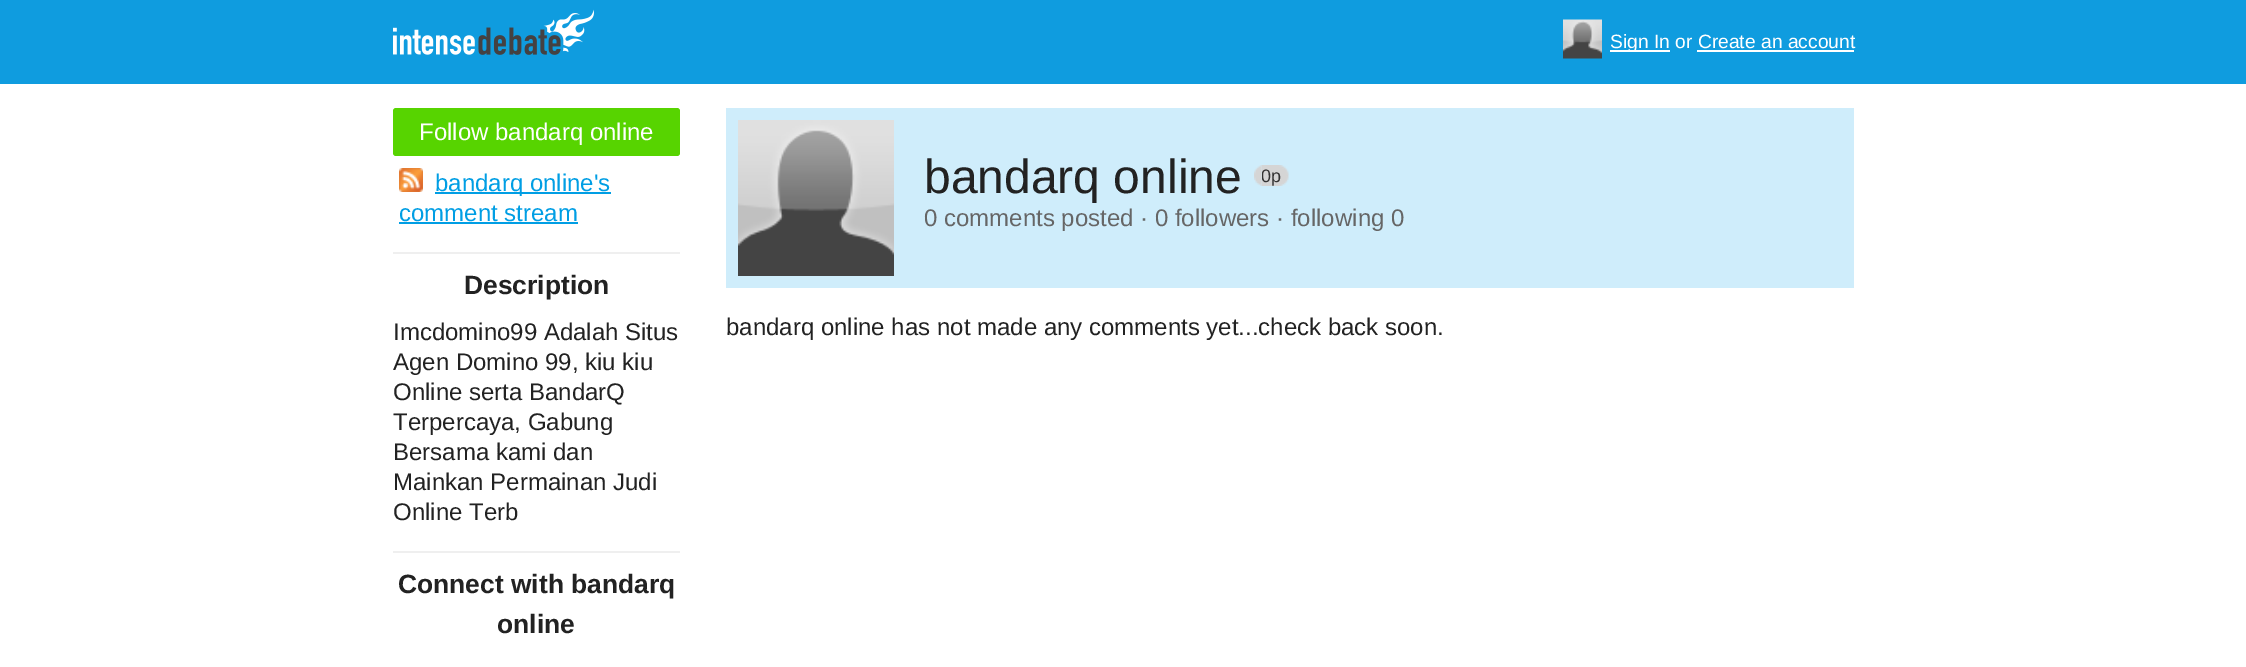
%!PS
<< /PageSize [2246 667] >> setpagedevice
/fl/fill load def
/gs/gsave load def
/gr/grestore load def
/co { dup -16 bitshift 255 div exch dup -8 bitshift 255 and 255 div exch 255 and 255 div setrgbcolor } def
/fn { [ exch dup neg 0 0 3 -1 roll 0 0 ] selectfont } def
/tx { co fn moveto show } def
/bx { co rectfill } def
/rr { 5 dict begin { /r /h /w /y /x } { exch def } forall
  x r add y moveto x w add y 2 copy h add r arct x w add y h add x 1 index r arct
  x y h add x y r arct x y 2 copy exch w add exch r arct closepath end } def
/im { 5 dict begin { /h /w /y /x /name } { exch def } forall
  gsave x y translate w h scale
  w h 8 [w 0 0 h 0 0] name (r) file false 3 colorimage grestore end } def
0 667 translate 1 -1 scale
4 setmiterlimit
0 0 2246 667 16#FFFFFF bx
0 0 2246 84 16#0F9CDF bx
(media/1.raw) 393 9 201 46 im
(media/2.raw) 1563 19 39 40 im
1610 50 60 2 16#FFFFFF bx
1697 50 157 2 16#FFFFFF bx
16#57D400 co
393 108 287 48 3 rr fl
(media/3.raw) 399 168 24 24 im
435 192 176 2 16#009EE4 bx
399 222 179 2 16#009EE4 bx
393 252 287 2 16#EFEFEF bx
393 551 287 2 16#EFEFEF bx
726 108 1128 180 16#CFEDFB bx
(media/4.raw) 738 120 156 156 im
(media/5.raw) 1254 165 8 21 im
(media/6.raw) 1261 165 28 21 im
(Sign In or Create an account) 1610 48 /LiberationSans-Regular 19.25 16#FFFFFF tx
(Follow bandarq online) 419 140 /LiberationSans-Regular 24 16#FFFFFF tx
(bandarq online's) 435 191 /LiberationSans-Regular 24 16#009EE4 tx
(comment stream) 399 221 /LiberationSans-Regular 24 16#009EE4 tx
(Description) 464 294 /LiberationSans-Bold 26.4 16#222222 tx
(Imcdomino99 Adalah Situs) 393 340 /LiberationSans-Regular 24 16#222222 tx
(Agen Domino 99, kiu kiu) 393 370 /LiberationSans-Regular 24 16#222222 tx
(Online serta BandarQ) 393 400 /LiberationSans-Regular 24 16#222222 tx
(Terpercaya, Gabung) 393 430 /LiberationSans-Regular 24 16#222222 tx
(Bersama kami dan) 393 460 /LiberationSans-Regular 24 16#222222 tx
(Mainkan Permainan Judi) 393 490 /LiberationSans-Regular 24 16#222222 tx
(Online Terb) 393 520 /LiberationSans-Regular 24 16#222222 tx
(Connect with bandarq) 398 593 /LiberationSans-Bold 26.4 16#222222 tx
(online) 497 633 /LiberationSans-Bold 26.4 16#222222 tx
(bandarq online) 924 193 /LiberationSans-Regular 48 16#222222 tx
gs
1262 165 27 21 rectclip
(0p) 1261 182 /LiberationSans-Regular 18 16#333333 tx
gr
(0 comments posted · 0 followers · following 0) 924 226 /LiberationSans-Regular 24 16#666666 tx
(bandarq online has not made any comments yet...check back soon.) 726 335 /LiberationSans-Regular 24 16#222222 tx
showpage
